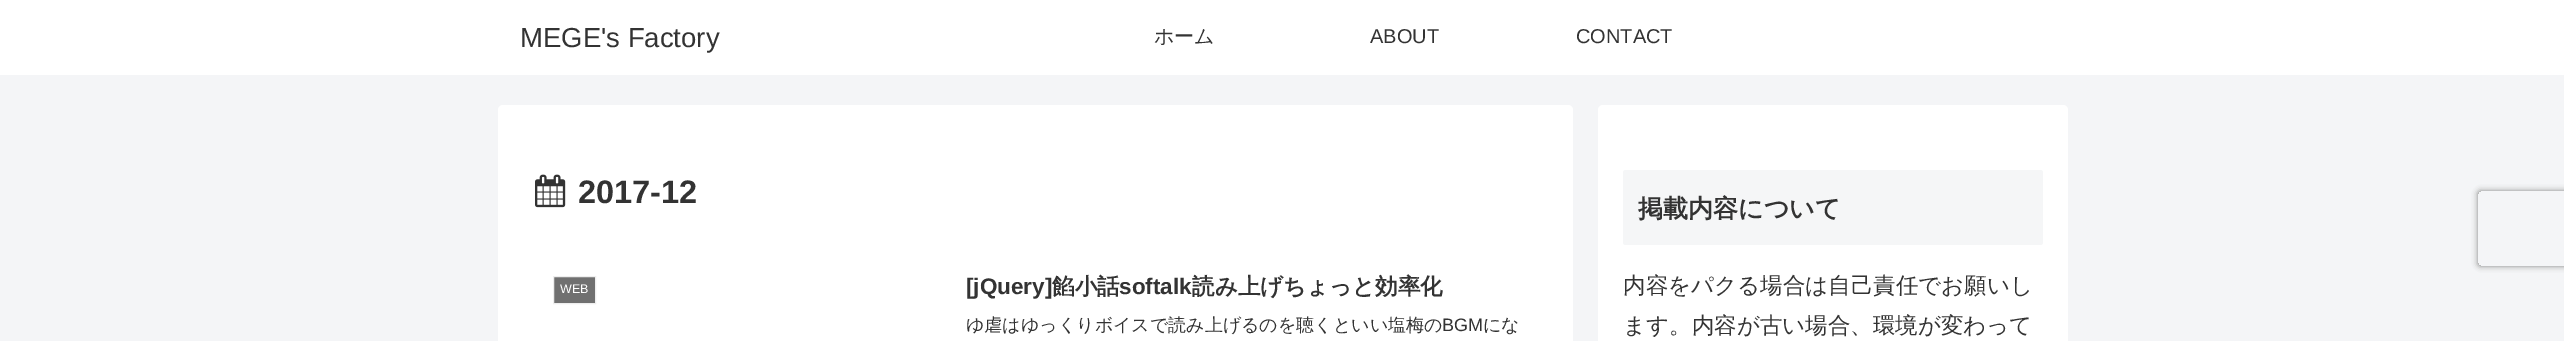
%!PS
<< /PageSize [2564 341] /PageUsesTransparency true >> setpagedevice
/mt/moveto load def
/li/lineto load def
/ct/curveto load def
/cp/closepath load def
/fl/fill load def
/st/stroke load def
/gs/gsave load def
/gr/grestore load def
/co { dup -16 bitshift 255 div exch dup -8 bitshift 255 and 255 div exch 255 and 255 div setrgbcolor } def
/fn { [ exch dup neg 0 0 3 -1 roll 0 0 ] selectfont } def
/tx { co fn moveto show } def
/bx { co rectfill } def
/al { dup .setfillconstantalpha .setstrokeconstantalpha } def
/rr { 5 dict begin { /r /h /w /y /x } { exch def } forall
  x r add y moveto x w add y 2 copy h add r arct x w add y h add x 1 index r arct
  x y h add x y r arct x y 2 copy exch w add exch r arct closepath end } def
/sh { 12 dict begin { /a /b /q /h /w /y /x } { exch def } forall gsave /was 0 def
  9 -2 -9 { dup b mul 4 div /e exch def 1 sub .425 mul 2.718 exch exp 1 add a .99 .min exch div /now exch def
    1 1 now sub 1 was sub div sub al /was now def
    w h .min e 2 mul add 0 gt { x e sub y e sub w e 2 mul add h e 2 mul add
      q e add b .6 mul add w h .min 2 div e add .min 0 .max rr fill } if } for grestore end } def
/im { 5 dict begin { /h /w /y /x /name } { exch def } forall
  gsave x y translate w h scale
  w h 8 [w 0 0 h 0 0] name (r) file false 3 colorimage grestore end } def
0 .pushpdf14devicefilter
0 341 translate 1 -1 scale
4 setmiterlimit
0 0 2564 341 16#F4F5F7 bx
0 0 2564 75 16#FFFFFF bx
498 105 1075 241 5 rr fl
(media/1.raw) 535 174 31 34 im
16#707070 co
553.5 276.5 mt 595.5 276.5 li 595.5 303.5 li 553.5 303.5 li cp gs fl gr
16#EEEEEE co
st
16#FFFFFF co
1598 105 470 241 5 rr fl
16#F5F6F7 co
1623 170 420 75 2.5 rr fl
gs
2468 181 mt 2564 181 li 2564 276 li 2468 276 li cp 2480.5 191 mt 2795.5 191 li 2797 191 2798 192 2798 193.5 ct 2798 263.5 li 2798 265 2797 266 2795.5 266 ct 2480.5 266 li 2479 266 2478 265 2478 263.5 ct 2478 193.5 li 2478 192 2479 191 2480.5 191 ct cp eoclip newpath
16#808080 co
2478 191 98 75 2.5 3 1 sh
gr
(MEGE's Factory) 520 47 /LiberationSans-Regular 27.5 16#333333 tx
(ホーム) 1154 43 /WenQuanYiZenHei-Medium 20 16#333333 tx
(ABOUT) 1370 43 /LiberationSans-Regular 20 16#333333 tx
(CONTACT) 1576 43 /LiberationSans-Regular 20 16#333333 tx
(2017-12) 578 203 /LiberationSans-Bold 32.5 16#333333 tx
(WEB) 560 293 /LiberationSans-Regular 12.5 16#FFFFFF tx
([jQuery]) 966 294 /LiberationSans-Bold 22.5 16#333333 tx
(餡小話) 1052 294 /WenQuanYiZenHei-Bold 22.5 16#333333 tx
(softalk) 1119 294 /LiberationSans-Bold 22.5 16#333333 tx
(読み上げちょっと効率化) 1192 294 /WenQuanYiZenHei-Bold 22.5 16#333333 tx
(ゆ虐はゆっくりボイスで読み上げるのを聴くといい塩梅の) 966 331 /WenQuanYiZenHei-Medium 18 16#333333 tx
(BGM) 1442 331 /LiberationSans-Regular 18 16#333333 tx
(にな) 1483 331 /WenQuanYiZenHei-Medium 18 16#333333 tx
(掲載内容について) 1638 217 /WenQuanYiZenHei-Bold 25 16#333333 tx
(内容をパクる場合は自己責任でお願いし) 1623 293 /WenQuanYiZenHei-Medium 22.5 16#333333 tx
(ます。内容が古い場合、環境が変わって) 1623 333 /WenQuanYiZenHei-Medium 22.5 16#333333 tx
.poppdf14devicefilter showpage
